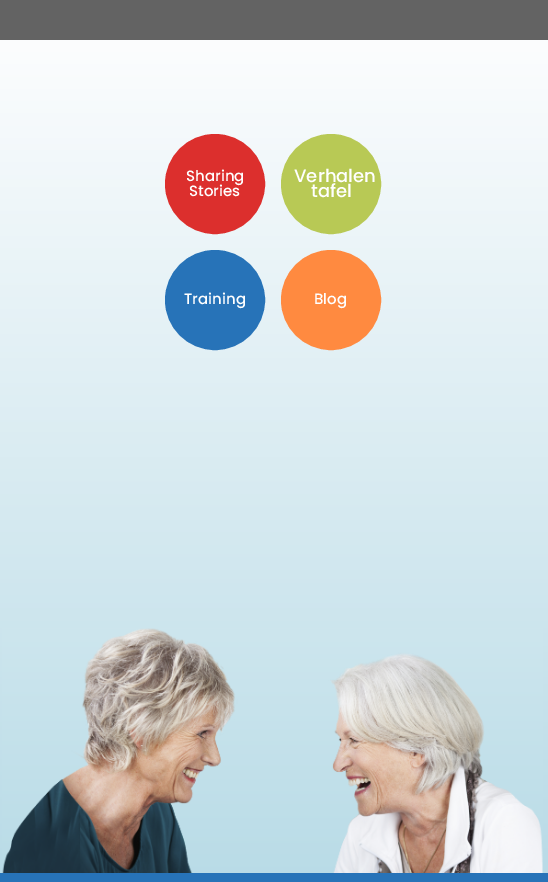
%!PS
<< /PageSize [548 882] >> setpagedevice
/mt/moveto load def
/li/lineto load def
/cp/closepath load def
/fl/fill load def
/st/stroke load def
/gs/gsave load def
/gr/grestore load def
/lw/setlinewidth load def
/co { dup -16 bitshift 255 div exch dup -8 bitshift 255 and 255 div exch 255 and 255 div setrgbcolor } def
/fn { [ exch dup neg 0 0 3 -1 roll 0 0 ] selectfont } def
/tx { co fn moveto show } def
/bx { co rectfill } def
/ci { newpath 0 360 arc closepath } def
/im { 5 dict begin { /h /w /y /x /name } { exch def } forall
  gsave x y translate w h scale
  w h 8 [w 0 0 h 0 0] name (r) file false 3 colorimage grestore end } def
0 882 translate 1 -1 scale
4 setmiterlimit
0 0 548 882 16#FFFFFF bx
gs 0 40 mt 548 40 li 548 873 li 0 873 li cp clip newpath
<< /ShadingType 2 /ColorSpace /DeviceRGB /Coords [274 0 274 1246] /Extend [true true] /Function << /FunctionType 2 /Domain [0 1] /C0 [1 1 1] /C1 [.608 .8 .863] /N 1 >> >> shfill gr
0 0 548 40 16#636363 bx
16#DC2F2D co
215 184 48.5 ci gs fl gr
3 lw
st
16#B8C955 co
331 184 48.5 ci gs fl gr
st
16#2773B8 co
215 300 48.5 ci gs fl gr
st
16#FF8A40 co
331 300 48.5 ci gs fl gr
st
(media/1.raw) 2 628 541 245 im
0 873 548 9 16#2773B8 bx
(Sharing) 186 181 /Poppins-Medium 15 16#FFFFFF tx
(Stories) 189 196 /Poppins-Medium 15 16#FFFFFF tx
(Verhalen) 294 182 /Poppins-Medium 18 16#FFFFFF tx
(tafel) 311 197 /Poppins-Medium 18 16#FFFFFF tx
(Training) 184 304 /Poppins-Medium 15 16#FFFFFF tx
(Blog) 314 304 /Poppins-Medium 15 16#FFFFFF tx
showpage
